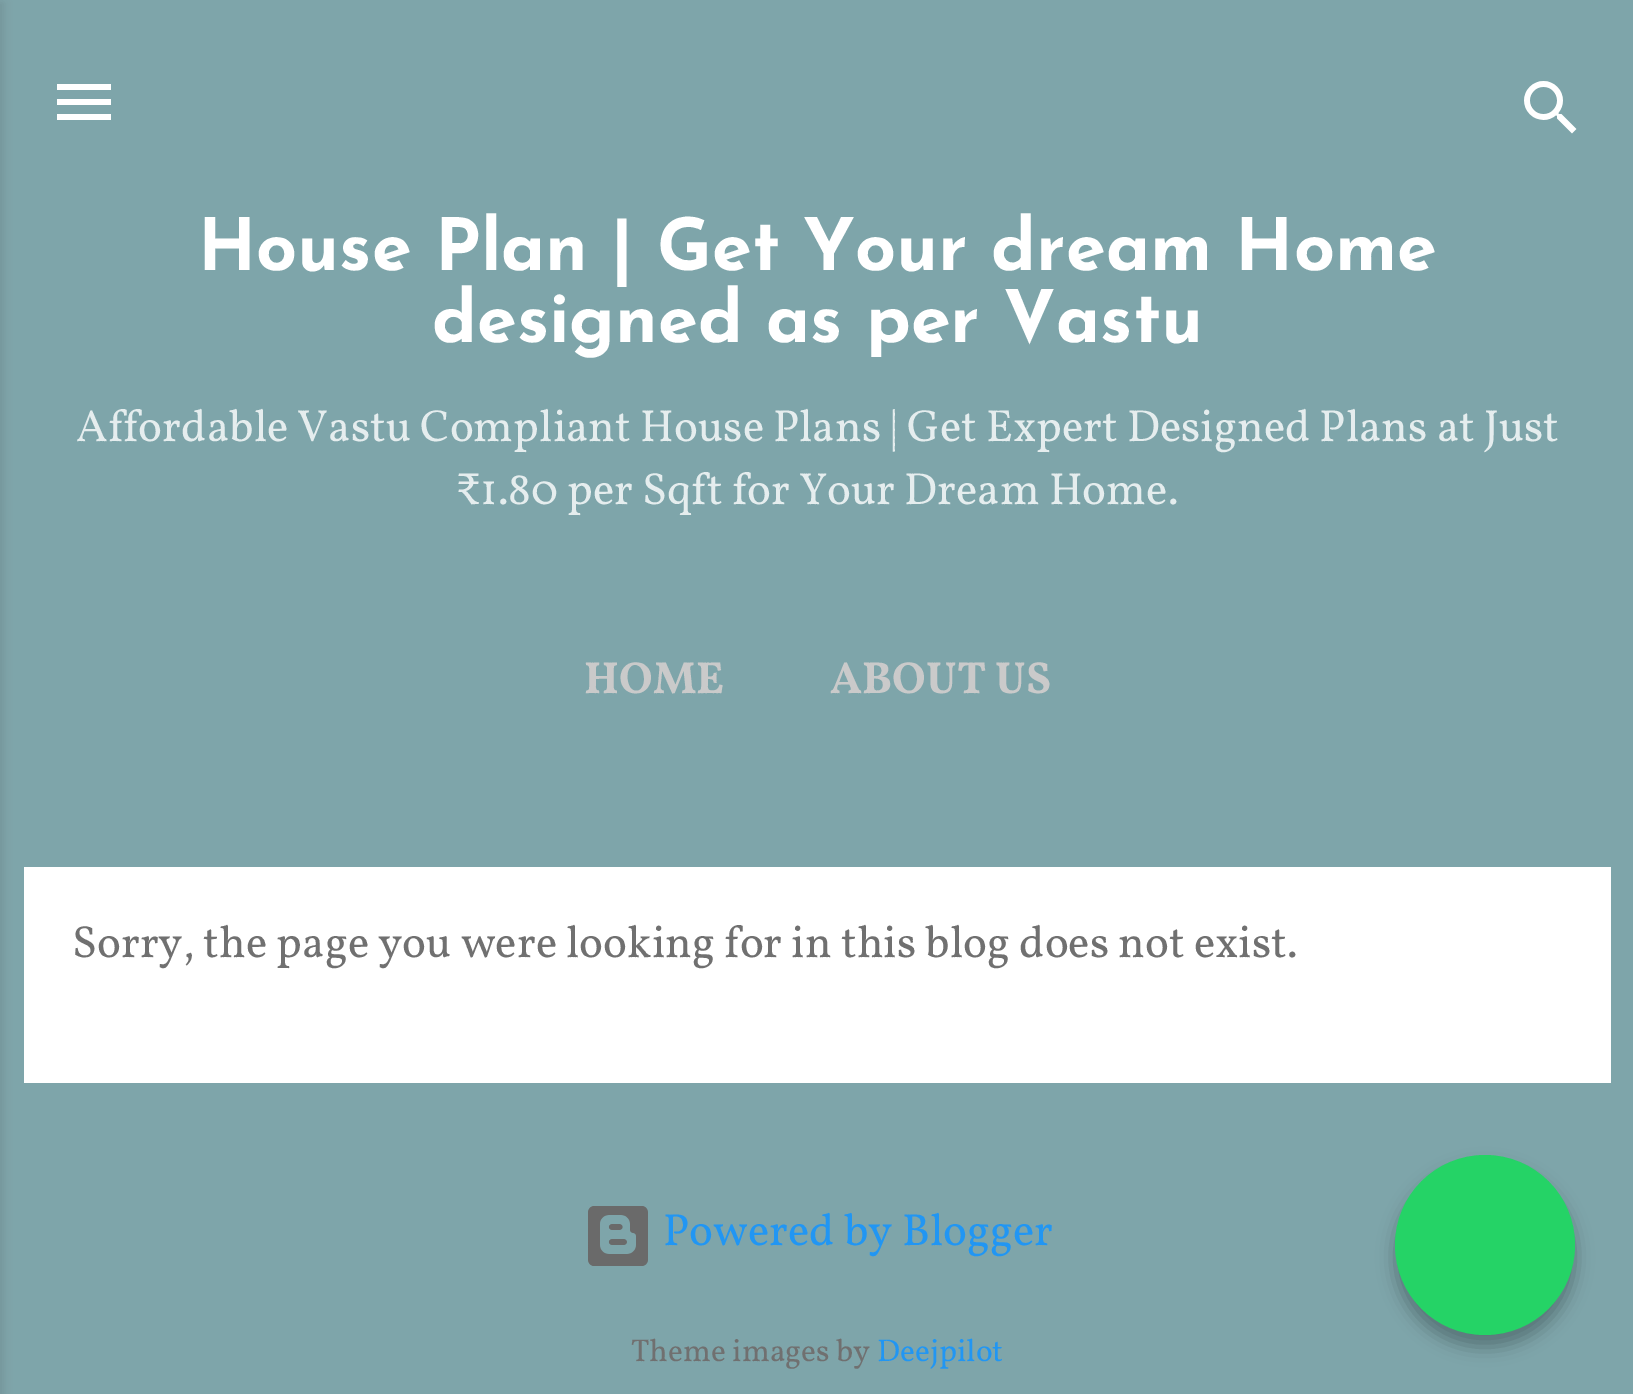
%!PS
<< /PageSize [1633 1394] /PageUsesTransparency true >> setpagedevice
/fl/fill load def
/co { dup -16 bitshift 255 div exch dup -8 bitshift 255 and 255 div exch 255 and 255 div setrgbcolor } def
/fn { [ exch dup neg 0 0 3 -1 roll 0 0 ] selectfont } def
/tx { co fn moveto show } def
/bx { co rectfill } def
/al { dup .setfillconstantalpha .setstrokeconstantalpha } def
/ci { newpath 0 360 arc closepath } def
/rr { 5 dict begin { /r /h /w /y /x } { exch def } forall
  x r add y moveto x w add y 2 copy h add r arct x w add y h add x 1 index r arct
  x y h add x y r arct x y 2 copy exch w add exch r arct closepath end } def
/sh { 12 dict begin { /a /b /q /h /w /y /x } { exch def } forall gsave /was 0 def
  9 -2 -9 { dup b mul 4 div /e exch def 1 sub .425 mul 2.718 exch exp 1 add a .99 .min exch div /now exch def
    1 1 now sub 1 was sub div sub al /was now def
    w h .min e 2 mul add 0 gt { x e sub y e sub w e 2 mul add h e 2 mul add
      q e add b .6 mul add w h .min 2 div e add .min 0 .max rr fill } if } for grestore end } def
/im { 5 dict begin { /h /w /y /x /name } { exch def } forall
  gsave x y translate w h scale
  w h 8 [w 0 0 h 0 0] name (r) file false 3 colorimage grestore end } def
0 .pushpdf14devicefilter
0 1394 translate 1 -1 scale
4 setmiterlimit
0 0 1633 1394 16#7EA5AA bx
16#000000 co
-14 3 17 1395 0 4.5 .1 sh
(media/1.raw) 57 84 54 36 im
(media/2.raw) 1524 81 53 53 im
24 867 1587 216 16#FFFFFF bx
(media/3.raw) 588 1206 60 60 im
16#000000 co
1395 1167 180 180 90 9 .3 sh
16#25D366 co
1485 1245 90 ci fl
(House Plan | Get Your dream Home) 198 270 /JosefinSans-Bold 72 16#FFFFFF tx
(designed as per Vastu) 432 342 /JosefinSans-Bold 72 16#FFFFFF tx
(Affordable Vastu Compliant House Plans | Get Expert Designed Plans at Just) 76 441 /Vollkorn-Regular 45 16#E5EDEE tx
(₹1.80 per Sqft for Your Dream Home.) 456 504 /Vollkorn-Regular 45 16#E5EDEE tx
(HOME) 584 693 /Vollkorn-Bold 45 16#CACACA tx
(ABOUT US) 830 693 /Vollkorn-Bold 45 16#CACACA tx
(Sorry, the page you were looking for in this blog does not exist.) 72 957 /Vollkorn-Regular 45 16#707070 tx
(Powered by Blogger) 663 1245 /Vollkorn-Regular 45 16#2196F3 tx
(Theme images by) 631 1361 /Vollkorn-Regular 31.5 16#707070 tx
(Deejpilot) 877 1361 /Vollkorn-Regular 31.5 16#2196F3 tx
.poppdf14devicefilter showpage
